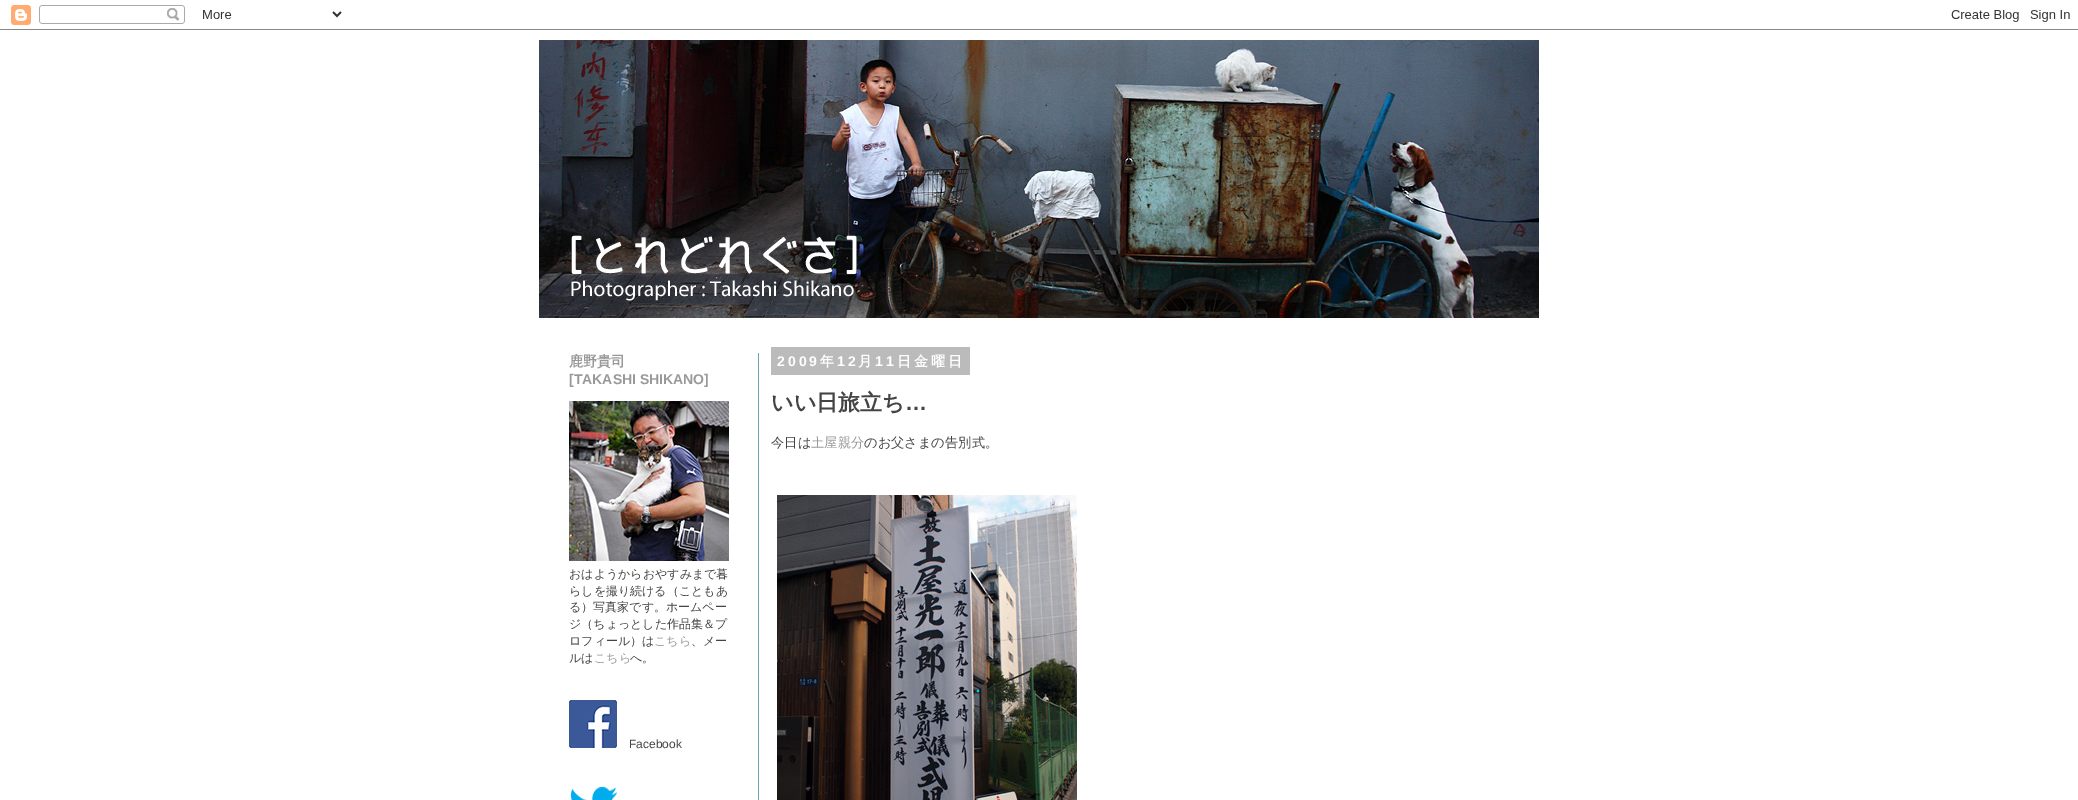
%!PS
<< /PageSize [2078 800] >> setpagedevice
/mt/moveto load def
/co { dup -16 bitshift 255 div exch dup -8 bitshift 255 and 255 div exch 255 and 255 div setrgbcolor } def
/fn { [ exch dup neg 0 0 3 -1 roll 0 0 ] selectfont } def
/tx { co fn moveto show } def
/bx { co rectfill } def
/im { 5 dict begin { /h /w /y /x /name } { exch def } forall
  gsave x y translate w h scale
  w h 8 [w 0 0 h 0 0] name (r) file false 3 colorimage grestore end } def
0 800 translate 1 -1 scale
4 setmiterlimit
0 0 2078 800 16#FFFFFF bx
(media/1.raw) 0 5 2078 25 im
(media/2.raw) 539 40 1000 278 im
758 353 1 447 16#6EA1BB bx
(media/3.raw) 569 401 160 160 im
(media/4.raw) 569 700 48 48 im
(media/5.raw) 570 787 47 13 im
771 347 199 28 16#BBBBBB bx
(media/6.raw) 777 495 300 305 im
(鹿野貴司) 569 366 /WenQuanYiZenHei-Bold 14 16#999999 tx
([TAKASHI SHIKANO]) 569 384 /LiberationSans-Bold 14 16#999999 tx
(おはようからおやすみまで暮) 569 578 /WenQuanYiZenHei-Medium 12 16#444444 tx
(らしを撮り続ける（こともあ) 569 595 /WenQuanYiZenHei-Medium 12 16#444444 tx
(る）写真家です。ホームペー) 569 611 /WenQuanYiZenHei-Medium 12 16#444444 tx
(ジ（ちょっとした作品集＆プ) 569 628 /WenQuanYiZenHei-Medium 12 16#444444 tx
(ロフィール）は) 569 645 /WenQuanYiZenHei-Medium 12 16#444444 tx
(こちら) 654 645 /WenQuanYiZenHei-Medium 12 16#999999 tx
(、メー) 691 645 /WenQuanYiZenHei-Medium 12 16#444444 tx
(ルは) 569 662 /WenQuanYiZenHei-Medium 12 16#444444 tx
(こちら) 594 662 /WenQuanYiZenHei-Medium 12 16#999999 tx
(へ。) 630 662 /WenQuanYiZenHei-Medium 12 16#444444 tx
(Facebook) 629 748 /LiberationSans-Regular 12 16#444444 tx
/LiberationSans-Bold 14 fn
16#FFFFFF co
777 366 mt 3 0 (2009) ashow
/WenQuanYiZenHei-Bold 14 fn
820 366 mt 3 0 (年) ashow
/LiberationSans-Bold 14 fn
837 366 mt 3 0 (12) ashow
/WenQuanYiZenHei-Bold 14 fn
858 366 mt 3 0 (月) ashow
/LiberationSans-Bold 14 fn
875 366 mt 3 0 (11) ashow
/WenQuanYiZenHei-Bold 14 fn
897 366 mt 3 0 (日金曜日) ashow
(いい日旅立ち) 771 410 /WenQuanYiZenHei-Bold 22 16#444444 tx
(…) 905 410 /LiberationSans-Bold 22 16#444444 tx
(今日は) 771 447 /WenQuanYiZenHei-Medium 13.25 16#444444 tx
(土屋親分) 811 447 /WenQuanYiZenHei-Medium 13.25 16#999999 tx
(のお父さまの告別式。) 864 447 /WenQuanYiZenHei-Medium 13.25 16#444444 tx
showpage
